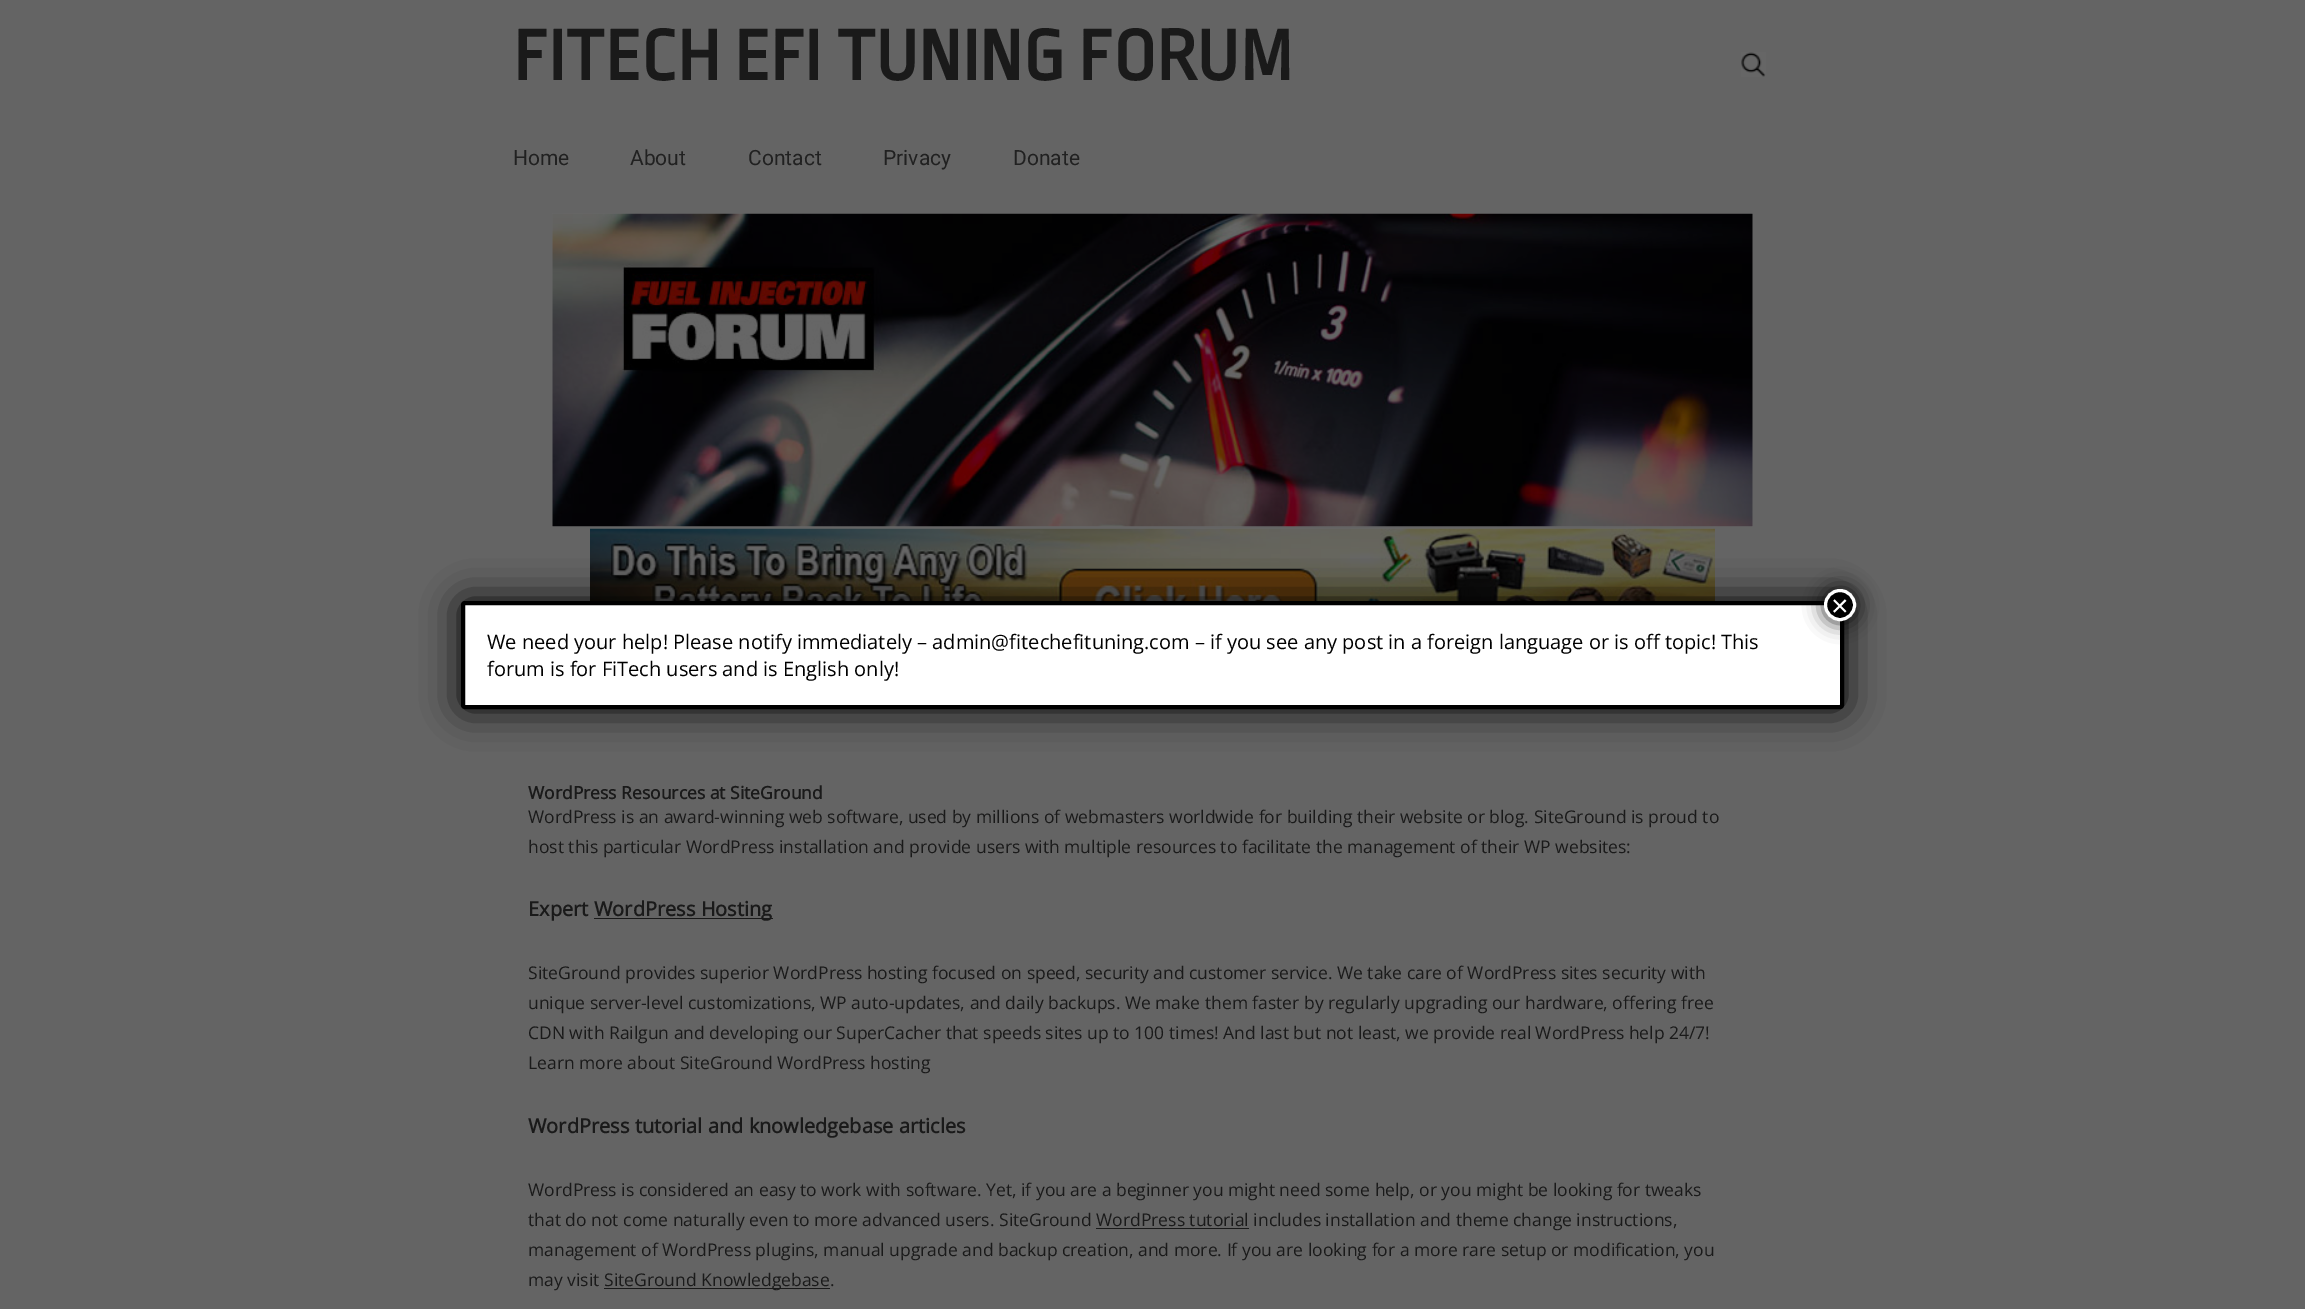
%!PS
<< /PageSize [2305 1309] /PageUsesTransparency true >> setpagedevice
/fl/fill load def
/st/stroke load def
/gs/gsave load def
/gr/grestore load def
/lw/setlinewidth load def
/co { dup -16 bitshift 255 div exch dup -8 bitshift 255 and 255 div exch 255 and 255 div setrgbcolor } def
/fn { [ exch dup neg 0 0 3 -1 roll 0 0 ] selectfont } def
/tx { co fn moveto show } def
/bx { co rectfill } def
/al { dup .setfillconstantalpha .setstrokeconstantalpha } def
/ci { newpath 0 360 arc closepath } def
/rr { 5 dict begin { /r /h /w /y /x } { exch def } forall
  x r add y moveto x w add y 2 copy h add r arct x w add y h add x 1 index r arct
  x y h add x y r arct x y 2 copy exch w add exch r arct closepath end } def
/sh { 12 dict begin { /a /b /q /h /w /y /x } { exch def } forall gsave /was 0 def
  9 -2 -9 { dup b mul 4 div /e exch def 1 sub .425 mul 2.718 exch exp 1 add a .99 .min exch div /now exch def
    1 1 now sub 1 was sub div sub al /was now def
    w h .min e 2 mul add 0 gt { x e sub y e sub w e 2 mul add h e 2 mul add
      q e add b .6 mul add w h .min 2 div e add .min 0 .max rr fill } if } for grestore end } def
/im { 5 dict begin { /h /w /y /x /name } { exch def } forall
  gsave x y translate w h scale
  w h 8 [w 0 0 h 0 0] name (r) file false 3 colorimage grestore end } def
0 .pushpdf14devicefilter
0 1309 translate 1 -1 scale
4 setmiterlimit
0 0 2305 1309 16#646464 bx
(media/1.raw) 1741 52 25 25 im
(media/2.raw) 552 213 1201 314 im
(media/3.raw) 590 528 1125 73 im
16#020202 co
461 601 1383 108 4 19 1 sh
16#FFFFFF co
463 603 1379 104 2 rr gs fl gr
16#000000 co
4 lw
st
16#020202 co
1823 588 35 35 17.5 9.5 .75 sh
16#000000 co
1840 605 14.5 ci gs fl gr
16#FFFFFF co
3 lw
st
594 918 179 1 16#1A1A1A bx
1096 1228 153 1 16#1A1A1A bx
604 1288 226 1 16#1A1A1A bx
(FITECH EFI TUNING FORUM) 513 80 /RopaSans-Bold 75 16#1A1A1A tx
(Home) 513 165 /Roboto-Regular 21 16#212121 tx
(About) 630 165 /Roboto-Regular 21 16#212121 tx
(Contact) 748 165 /Roboto-Regular 21 16#212121 tx
(Privacy) 883 165 /Roboto-Regular 21 16#212121 tx
(Donate) 1013 165 /Roboto-Regular 21 16#212121 tx
(×) 1831 616 /LiberationSans-Regular 30 16#FFFFFF tx
(We need your help! Please notify immediately – admin@fitechefituning.com – if you see any post in a foreign language or is off topic! This) 487 649 /OpenSans-Regular 20 16#000000 tx
(forum is for FiTech users and is English only!) 487 676 /OpenSans-Regular 20 16#000000 tx
(WordPress Resources at SiteGround) 528 799 /OpenSans-Bold 17.5 16#1A1A1A tx
(WordPress is an award-winning web software, used by millions of webmasters worldwide for building their website or blog. SiteGround is proud to) 528 823 /OpenSans-Regular 17.5 16#1A1A1A tx
(host this particular WordPress installation and provide users with multiple resources to facilitate the management of their WP websites:) 528 853 /OpenSans-Regular 17.5 16#1A1A1A tx
(Expert) 528 916 /OpenSans-Bold 20 16#1A1A1A tx
(WordPress Hosting) 594 916 /OpenSans-Bold 20 16#1A1A1A tx
(SiteGround provides superior WordPress hosting focused on speed, security and customer service. We take care of WordPress sites security with) 528 979 /OpenSans-Regular 17.5 16#1A1A1A tx
(unique server-level customizations, WP auto-updates, and daily backups. We make them faster by regularly upgrading our hardware, offering free) 528 1009 /OpenSans-Regular 17.5 16#1A1A1A tx
(CDN with Railgun and developing our SuperCacher that speeds sites up to 100 times! And last but not least, we provide real WordPress help 24/7!) 528 1039 /OpenSans-Regular 17.5 16#1A1A1A tx
(Learn more about SiteGround WordPress hosting) 528 1069 /OpenSans-Regular 17.5 16#1A1A1A tx
(WordPress tutorial and knowledgebase articles) 528 1133 /OpenSans-Bold 20 16#1A1A1A tx
(WordPress is considered an easy to work with software. Yet, if you are a beginner you might need some help, or you might be looking for tweaks) 528 1196 /OpenSans-Regular 17.5 16#1A1A1A tx
(that do not come naturally even to more advanced users. SiteGround WordPress tutorial includes installation and theme change instructions,) 528 1226 /OpenSans-Regular 17.5 16#1A1A1A tx
(management of WordPress plugins, manual upgrade and backup creation, and more. If you are looking for a more rare setup or modification, you) 528 1256 /OpenSans-Regular 17.5 16#1A1A1A tx
(may visit) 528 1286 /OpenSans-Regular 17.5 16#1A1A1A tx
(SiteGround Knowledgebase.) 604 1286 /OpenSans-Regular 17.5 16#1A1A1A tx
.poppdf14devicefilter showpage
